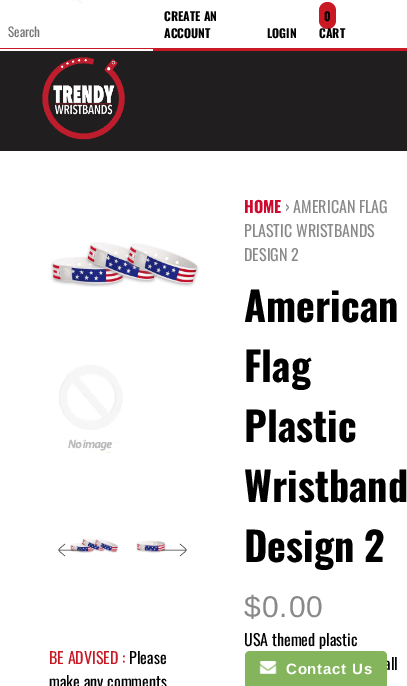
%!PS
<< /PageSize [407 686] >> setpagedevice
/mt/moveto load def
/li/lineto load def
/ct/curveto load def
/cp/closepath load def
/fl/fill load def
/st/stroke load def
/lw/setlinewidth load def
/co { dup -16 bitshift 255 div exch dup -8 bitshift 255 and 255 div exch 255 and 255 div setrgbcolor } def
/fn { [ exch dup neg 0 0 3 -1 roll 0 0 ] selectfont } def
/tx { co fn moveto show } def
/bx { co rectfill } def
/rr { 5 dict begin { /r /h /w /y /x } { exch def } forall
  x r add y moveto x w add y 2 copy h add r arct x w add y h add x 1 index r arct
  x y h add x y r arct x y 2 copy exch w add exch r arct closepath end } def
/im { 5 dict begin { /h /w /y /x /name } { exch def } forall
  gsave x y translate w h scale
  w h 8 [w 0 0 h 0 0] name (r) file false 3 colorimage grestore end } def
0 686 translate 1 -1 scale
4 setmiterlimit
0 0 407 686 16#FFFFFF bx
(media/1.raw) 71 0 12 4 im
0 48 407 3 16#C81A26 bx
0 49 153 2 16#FFFFFF bx
16#C91924 co
319 2 17 27 8.5 rr fl
0 51 407 100 16#211E20 bx
(media/2.raw) 42 57 83 83 im
(media/3.raw) 51 242 148 45 im
(media/4.raw) 59 365 64 88 im
(media/5.raw) 70 538 49 15 im
(media/6.raw) 136 540 30 13 im
16#4B4B4B co
.5 lw
65 544 mt 56.5 551.5 56.5 548.5 65 556 ct 59 550 mt 83.5 550 li st
180 556 mt 188.5 548.5 188.5 551.5 180 544 ct 186 550 mt 161.5 550 li st
(Search) 8 37 /Oswald-Regular 13 16#757575 tx
(CREATE AN) 164 21 /Oswald-Bold 12 16#000000 tx
(ACCOUNT) 164 38 /Oswald-Bold 12 16#000000 tx
(LOGIN) 267 38 /Oswald-Bold 12 16#000000 tx
(0) 324 21 /Oswald-Bold 12 16#000000 tx
(CART) 319 38 /Oswald-Bold 12 16#000000 tx
(BE ADVISED :) 49 664 /Oswald-Regular 16 16#C91925 tx
(Please) 129 664 /Oswald-Regular 16 16#000000 tx
(make any comments) 49 688 /Oswald-Regular 16 16#000000 tx
(HOME) 244 213 /Oswald-Bold 16 16#D00A2E tx
(› AMERICAN FLAG) 285 213 /Oswald-Regular 16 16#898989 tx
(PLASTIC WRISTBANDS) 244 237 /Oswald-Regular 16 16#898989 tx
(DESIGN 2) 244 261 /Oswald-Regular 16 16#898989 tx
(American) 244 322 /Oswald-Bold 40 16#000000 tx
(Flag) 244 382 /Oswald-Bold 40 16#000000 tx
(Plastic) 244 442 /Oswald-Bold 40 16#000000 tx
(Wristband) 244 502 /Oswald-Bold 40 16#000000 tx
(Design 2) 244 562 /Oswald-Bold 40 16#000000 tx
/LiberationSans-Regular 30 fn
16#898989 co
244 617 mt 1 0 ($0.00) ashow
(USA themed plastic) 244 646 /Oswald-Regular 16 16#000000 tx
(all) 384 670 /Oswald-Regular 16 16#000000 tx
16#84B45B co
250 651 mt 382 651 li 385 651 387 653 387 656 ct 387 686 li 245 686 li 245 656 li 245 653 247 651 250 651 ct cp fl
(media/7.raw) 259 661 18 13 im
/LiberationSans-Bold 15 fn
16#FFFFFF co
286 674 mt .75 0 (Contact Us) ashow
showpage
